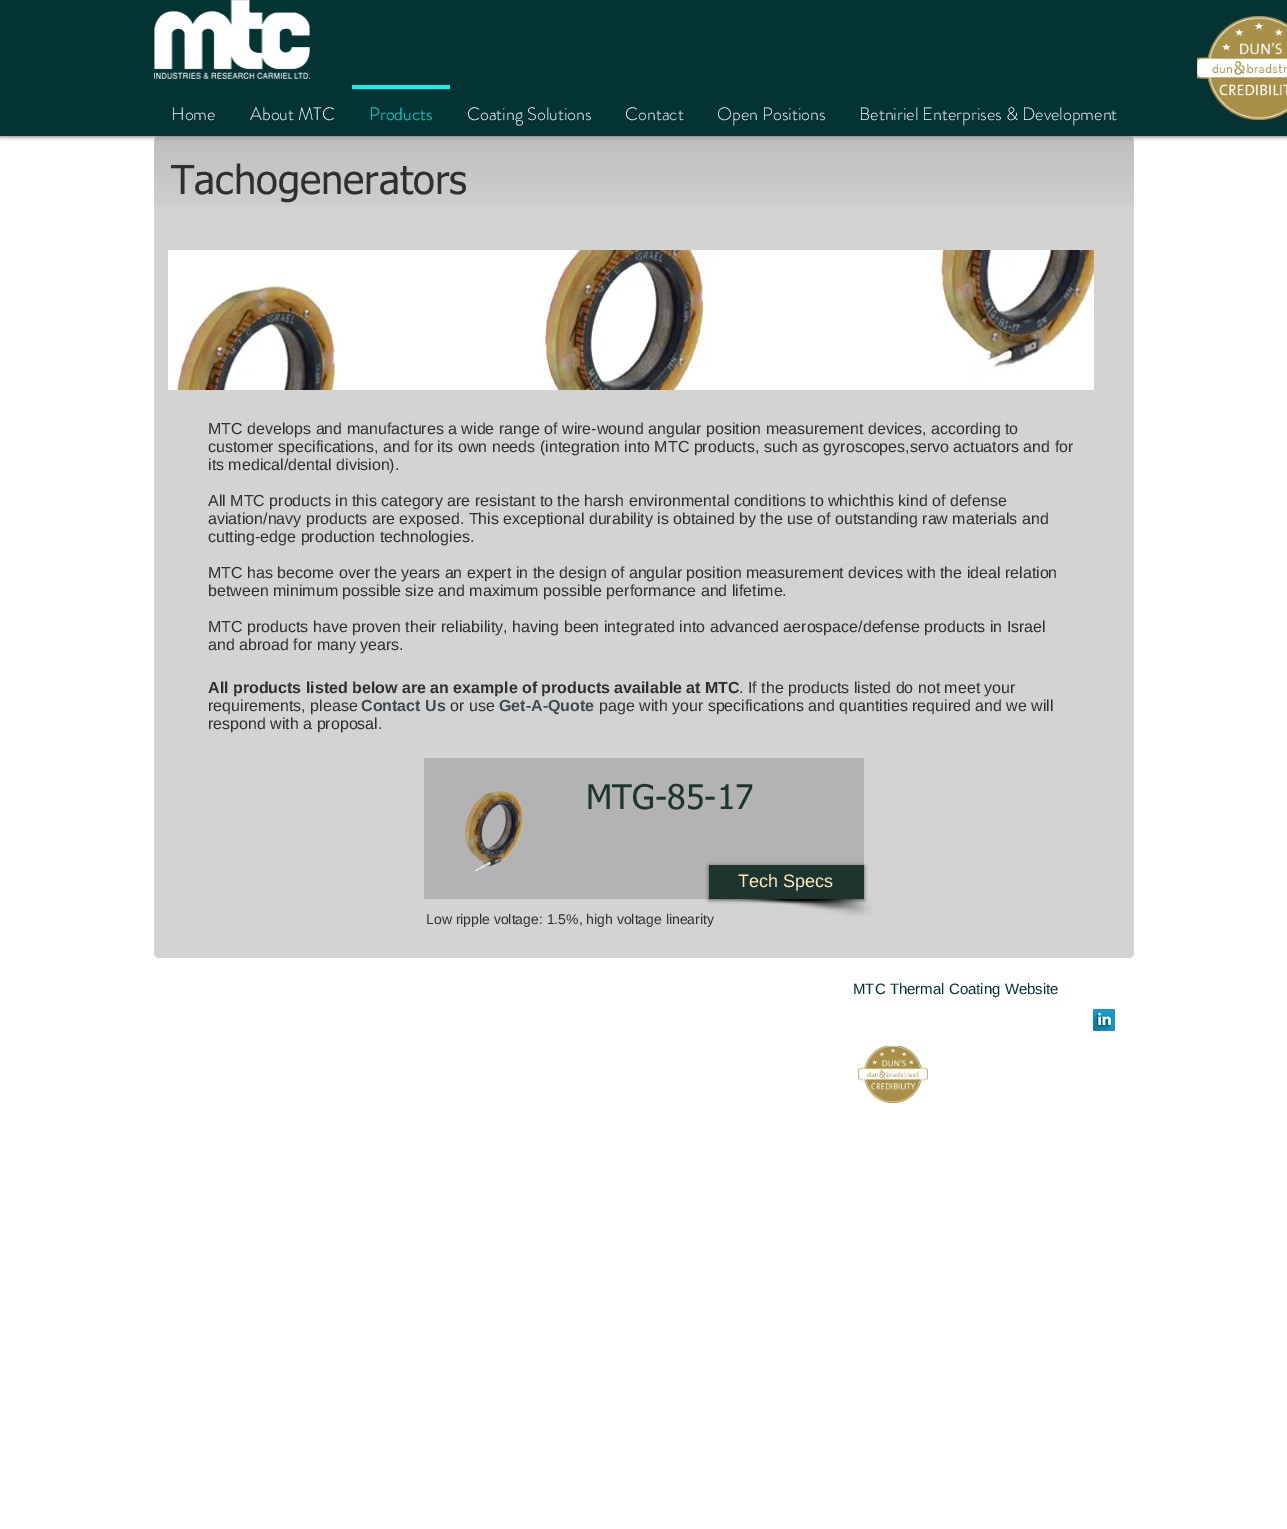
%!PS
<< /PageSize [1287 1529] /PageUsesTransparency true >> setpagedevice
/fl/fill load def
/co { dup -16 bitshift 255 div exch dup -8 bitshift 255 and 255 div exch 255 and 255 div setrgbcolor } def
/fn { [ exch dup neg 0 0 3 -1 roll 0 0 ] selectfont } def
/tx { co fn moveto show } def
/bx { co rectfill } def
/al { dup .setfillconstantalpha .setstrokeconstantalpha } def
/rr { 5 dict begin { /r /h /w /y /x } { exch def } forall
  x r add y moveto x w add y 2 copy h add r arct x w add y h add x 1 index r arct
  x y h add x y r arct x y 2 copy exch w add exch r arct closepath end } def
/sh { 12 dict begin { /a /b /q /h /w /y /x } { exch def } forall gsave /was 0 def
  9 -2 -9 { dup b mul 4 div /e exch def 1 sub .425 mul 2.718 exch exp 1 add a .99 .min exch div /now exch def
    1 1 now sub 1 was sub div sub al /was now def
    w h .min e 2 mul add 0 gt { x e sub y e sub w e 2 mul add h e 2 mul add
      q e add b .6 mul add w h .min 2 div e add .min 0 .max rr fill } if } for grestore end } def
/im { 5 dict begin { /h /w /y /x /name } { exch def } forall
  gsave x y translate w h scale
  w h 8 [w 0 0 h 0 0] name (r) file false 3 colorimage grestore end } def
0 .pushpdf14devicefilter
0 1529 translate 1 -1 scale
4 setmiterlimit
0 0 1287 1529 16#FFFFFF bx
16#000000 co
0 0 1287 136 0 2.5 .7 sh
0 0 1287 136 16#043334 bx
(media/1.raw) 154 0 156 79 im
(media/2.raw) 1197 16 90 104 im
352 85 98 4 16#00F5F5 bx
0.28 al
16#616063 co
154 136 980 822 5 rr fl
1 al
(media/3.raw) 154 138 980 69 im
(media/4.raw) 168 250 926 140 im
424 758 440 141 16#B3B2B4 bx
(media/5.raw) 464 786 60 85 im
(media/6.raw) 719 899 154 18 im
16#000000 co
709 866 155 34 0 2 .6 sh
709 865 155 34 16#1E342F bx
(media/7.raw) 1093 1009 22 22 im
(media/8.raw) 858 1046 70 57 im
(Home) 171 120 /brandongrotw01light-Light 18 16#FFFFFF tx
(About MTC) 250 120 /brandongrotw01light-Light 18 16#FFFFFF tx
(Products) 369 120 /brandongrotw01light-Light 18 16#00F5F5 tx
(Coating Solutions) 467 120 /brandongrotw01light-Light 18 16#FFFFFF tx
(Contact) 625 120 /brandongrotw01light-Light 18 16#FFFFFF tx
(Open Positions) 717 120 /brandongrotw01light-Light 18 16#FFFFFF tx
(Betniriel Enterprises & Development) 859 120 /brandongrotw01light-Light 18 16#FFFFFF tx
(Tachogenerators) 171 194 /tahoma-Regular 40 16#2F2F30 tx
(MTC develops and manufactures a wide range of wire-wound angular position measurement devices, according to) 208 434 /LiberationSans-Regular 16 16#2F2F30 tx
(customer specifications, and for its own needs \(integration into MTC products, such as gyroscopes,servo actuators and for) 208 452 /LiberationSans-Regular 16 16#2F2F30 tx
(its medical/dental division\).) 208 470 /LiberationSans-Regular 16 16#2F2F30 tx
(All MTC products in this category are resistant to the harsh environmental conditions to whichthis kind of defense) 208 506 /LiberationSans-Regular 16 16#2F2F30 tx
(aviation/navy products are exposed. This exceptional durability is obtained by the use of outstanding raw materials and) 208 524 /LiberationSans-Regular 16 16#2F2F30 tx
(cutting-edge production technologies.) 208 542 /LiberationSans-Regular 16 16#2F2F30 tx
(MTC has become over the years an expert in the design of angular position measurement devices with the ideal relation) 208 578 /LiberationSans-Regular 16 16#2F2F30 tx
(between minimum possible size and maximum possible performance and lifetime.) 208 596 /LiberationSans-Regular 16 16#2F2F30 tx
(MTC products have proven their reliability, having been integrated into advanced aerospace/defense products in Israel) 208 632 /LiberationSans-Regular 16 16#2F2F30 tx
(and abroad for many years.) 208 650 /LiberationSans-Regular 16 16#2F2F30 tx
(All products listed below are an example of products available at MTC) 208 693 /LiberationSans-Bold 16 16#2F2F30 tx
(. If the products listed do not meet your) 739 693 /LiberationSans-Regular 16 16#2F2F30 tx
(requirements, please) 208 711 /LiberationSans-Regular 16 16#2F2F30 tx
(Contact Us) 361 711 /LiberationSans-Bold 16 16#3D4A50 tx
(or use) 450 711 /LiberationSans-Regular 16 16#2F2F30 tx
(Get-A-Quote) 499 711 /LiberationSans-Bold 16 16#3D4A50 tx
(page with your specifications and quantities required and we will) 599 711 /LiberationSans-Regular 16 16#2F2F30 tx
(respond with a proposal.) 208 729 /LiberationSans-Regular 16 16#2F2F30 tx
(MTG-85-17) 586 809 /tahoma-Regular 34 16#1E342F tx
(Tech Specs) 738 887 /LiberationSans-Regular 18 16#FFEEBC tx
(Low ripple voltage: 1.5%, high voltage linearity) 426 924 /LiberationSans-Regular 14 16#2F2F30 tx
(MTC Thermal Coating Website) 853 994 /LiberationSans-Regular 15 16#043334 tx
.poppdf14devicefilter showpage
